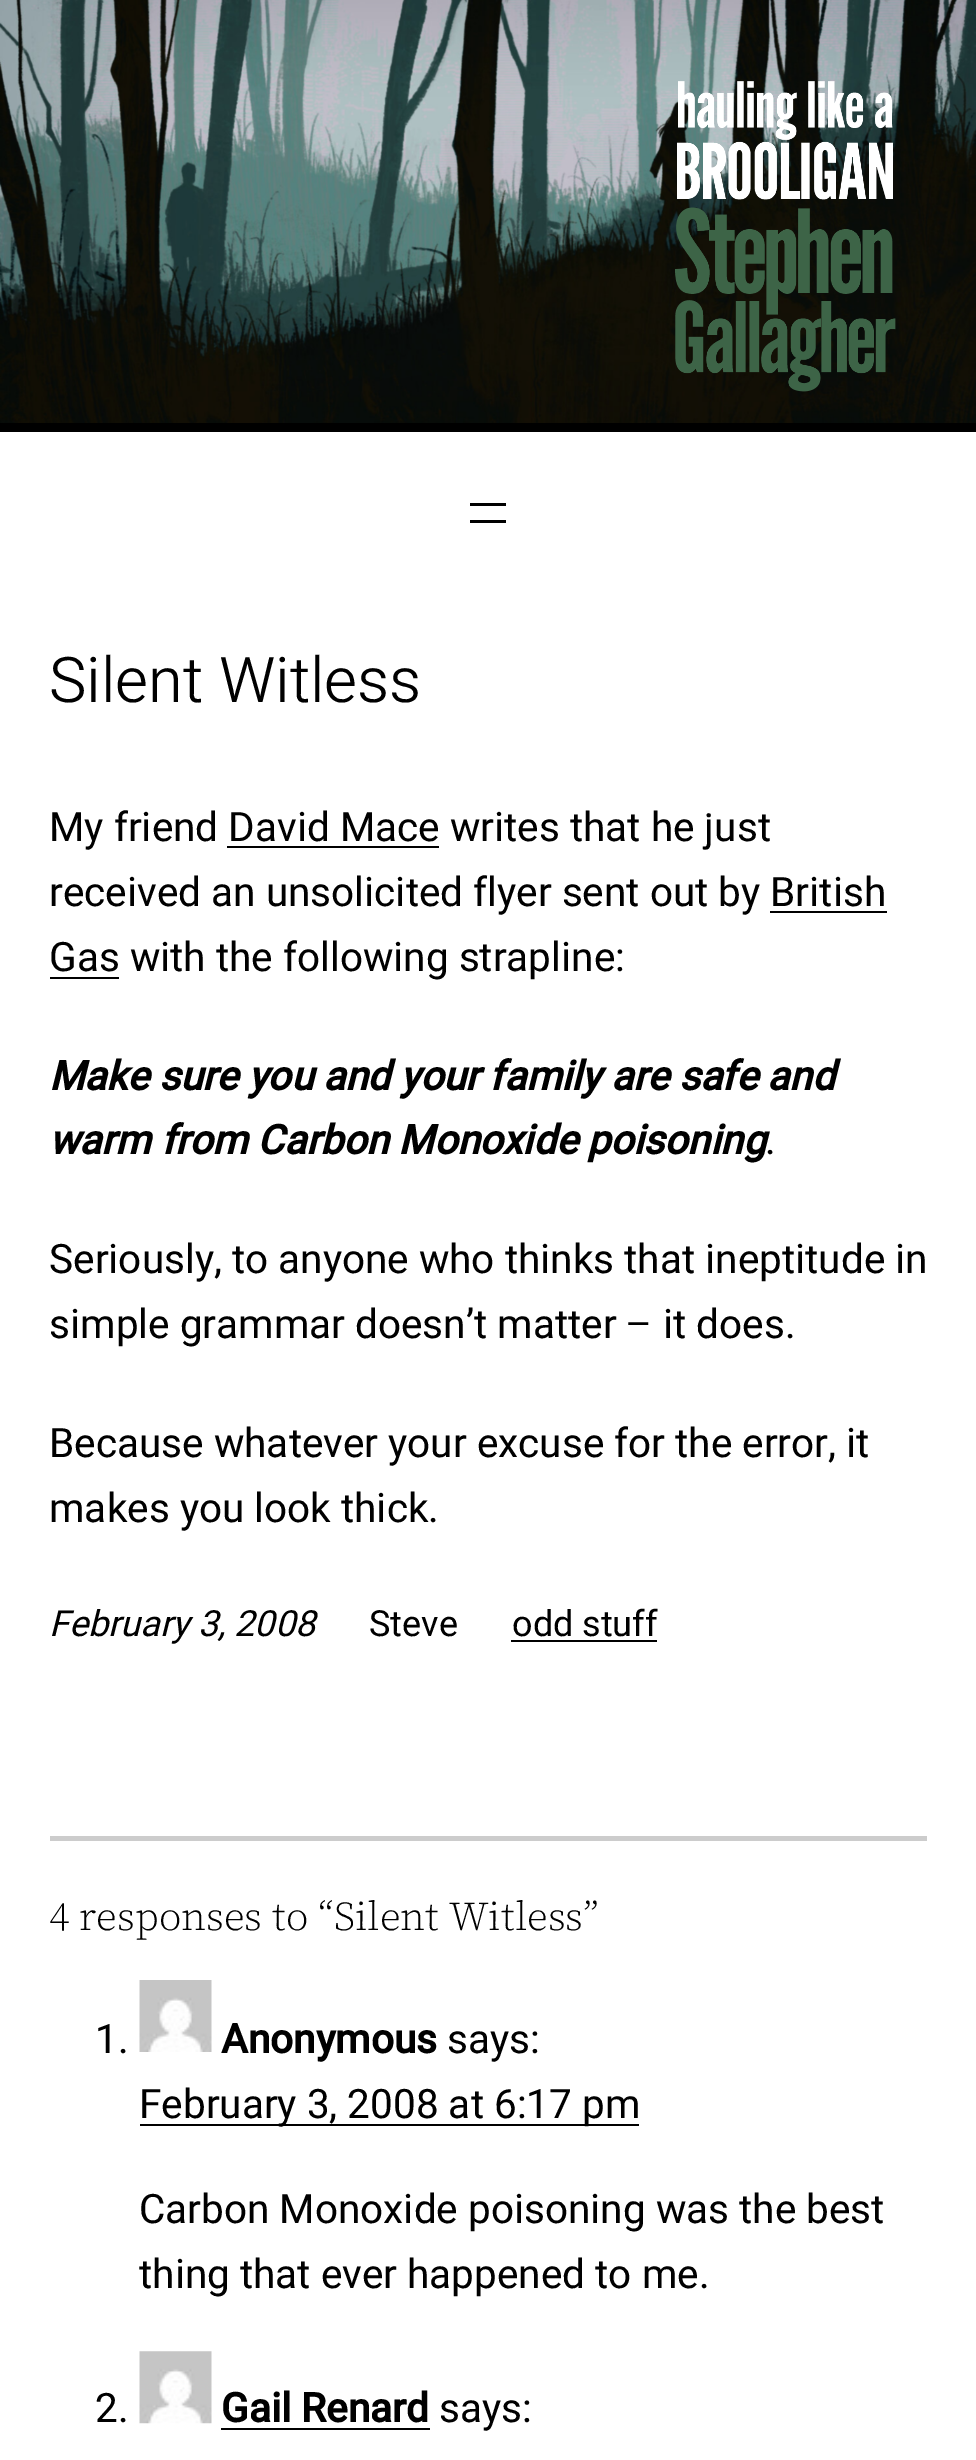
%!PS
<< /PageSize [976 2460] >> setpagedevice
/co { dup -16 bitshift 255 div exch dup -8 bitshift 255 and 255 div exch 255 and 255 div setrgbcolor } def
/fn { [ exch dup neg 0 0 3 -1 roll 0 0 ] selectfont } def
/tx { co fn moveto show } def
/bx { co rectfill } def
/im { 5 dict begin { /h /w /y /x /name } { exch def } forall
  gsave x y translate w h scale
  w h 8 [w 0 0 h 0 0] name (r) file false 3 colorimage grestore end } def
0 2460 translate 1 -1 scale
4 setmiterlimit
0 0 976 2460 16#FFFFFF bx
0 423 976 9 16#000000 bx
(media/1.raw) 0 0 976 423 im
(media/2.raw) 675 81 221 311 im
470 503 36 3 16#000000 bx
470 520 36 3 16#000000 bx
227 846 212 2 16#000000 bx
770 911 117 2 16#000000 bx
50 977 69 2 16#000000 bx
511 1640 146 2 16#000000 bx
50 1836 877 5 16#CCCCCC bx
(media/3.raw) 139 1980 73 72 im
140 2124 499 2 16#000000 bx
(media/4.raw) 139 2351 73 73 im
221 2428 209 2 16#000000 bx
(Silent Witless) 49 702 /Heebo-Light 63 16#000000 tx
(My friend David Mace writes that he just) 49 841 /Heebo-Regular 40.5 16#000000 tx
(received an unsolicited flyer sent out by British) 49 906 /Heebo-Regular 40.5 16#000000 tx
(Gas with the following strapline:) 49 971 /Heebo-Regular 40.5 16#000000 tx
(Make sure you and your family are safe and) 49 1090 /Heebo-BoldItalic 40.5 16#000000 tx
(warm from Carbon Monoxide poisoning) 49 1154 /Heebo-BoldItalic 40.5 16#000000 tx
(.) 765 1154 /Heebo-Regular 40.5 16#000000 tx
(Seriously, to anyone who thinks that ineptitude in) 49 1273 /Heebo-Regular 40.5 16#000000 tx
(simple grammar doesn’t matter – it does.) 49 1338 /Heebo-Regular 40.5 16#000000 tx
(Because whatever your excuse for the error, it) 49 1457 /Heebo-Regular 40.5 16#000000 tx
(makes you look thick.) 49 1522 /Heebo-Regular 40.5 16#000000 tx
(February 3, 2008) 49 1636 /Heebo-Italic 36 16#000000 tx
(Steve) 369 1636 /Heebo-Regular 36 16#000000 tx
(odd stuff) 512 1636 /Heebo-Regular 36 16#000000 tx
(4 responses to “Silent Witless”) 49 1930 /SourceSerif4-Light 40.5 16#000000 tx
(1.) 95 2053 /Heebo-Regular 40.5 16#000000 tx
(Anonymous) 221 2053 /Heebo-Bold 40.5 16#000000 tx
(says:) 447 2053 /Heebo-Regular 40.5 16#000000 tx
(February 3, 2008 at 6:17 pm) 139 2118 /Heebo-Regular 40.5 16#000000 tx
(Carbon Monoxide poisoning was the best) 139 2223 /Heebo-Regular 40.5 16#000000 tx
(thing that ever happened to me.) 139 2288 /Heebo-Regular 40.5 16#000000 tx
(2.) 95 2422 /Heebo-Regular 40.5 16#000000 tx
(Gail Renard) 221 2422 /Heebo-Bold 40.5 16#000000 tx
(says:) 439 2422 /Heebo-Regular 40.5 16#000000 tx
showpage
